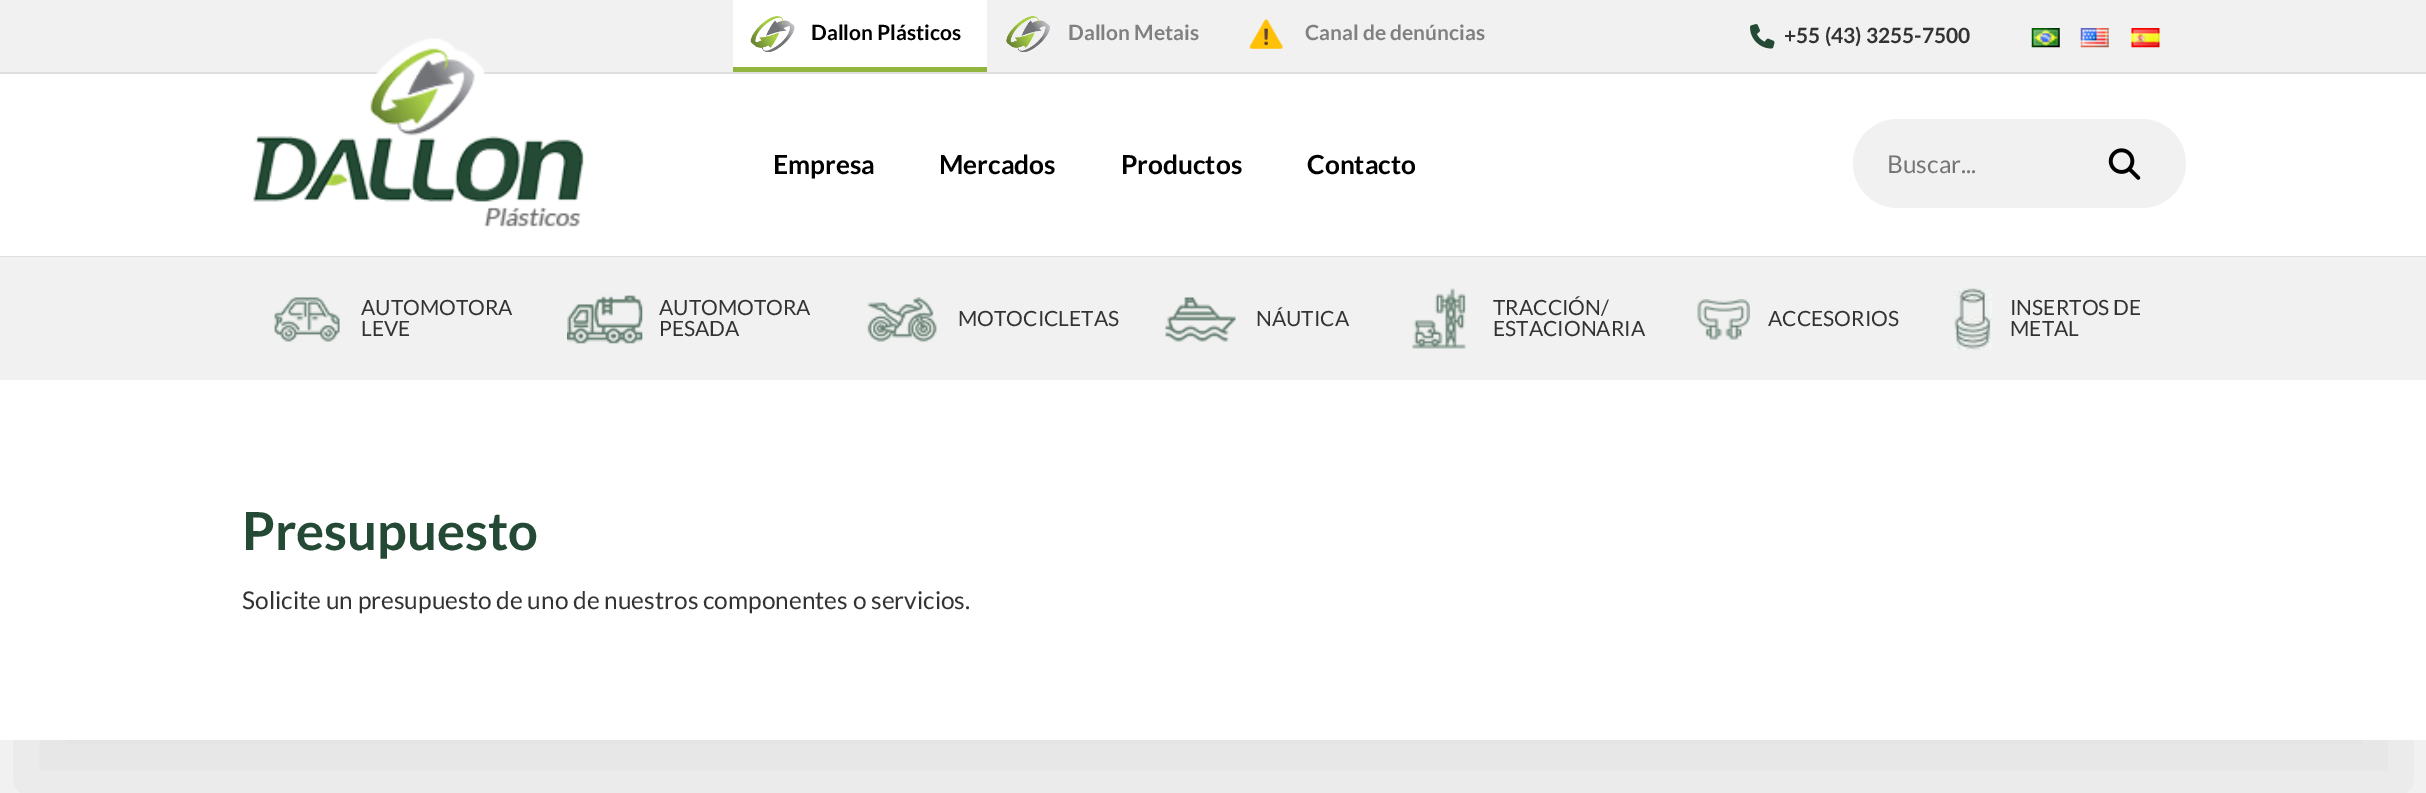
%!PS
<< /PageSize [2426 793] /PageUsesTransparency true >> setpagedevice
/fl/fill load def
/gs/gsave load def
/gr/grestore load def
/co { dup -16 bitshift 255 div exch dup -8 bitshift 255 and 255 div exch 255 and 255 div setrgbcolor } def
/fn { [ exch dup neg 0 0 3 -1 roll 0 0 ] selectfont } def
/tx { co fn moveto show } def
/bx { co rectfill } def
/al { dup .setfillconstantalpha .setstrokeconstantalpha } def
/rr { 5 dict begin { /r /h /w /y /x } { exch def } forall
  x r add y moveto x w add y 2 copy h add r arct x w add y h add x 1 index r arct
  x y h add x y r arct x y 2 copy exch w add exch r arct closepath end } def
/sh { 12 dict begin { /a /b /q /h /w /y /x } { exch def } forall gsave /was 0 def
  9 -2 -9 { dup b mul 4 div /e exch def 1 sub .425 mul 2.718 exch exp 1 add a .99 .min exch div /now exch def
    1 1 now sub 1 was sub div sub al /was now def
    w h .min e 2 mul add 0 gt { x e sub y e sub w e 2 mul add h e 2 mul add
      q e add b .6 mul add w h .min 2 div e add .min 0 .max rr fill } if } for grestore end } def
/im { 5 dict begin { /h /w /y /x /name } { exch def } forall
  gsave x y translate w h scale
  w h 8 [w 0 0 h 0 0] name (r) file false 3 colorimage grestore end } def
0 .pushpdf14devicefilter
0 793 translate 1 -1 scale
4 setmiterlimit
0 0 2426 793 16#FFFFFF bx
0 0 2426 72 16#F1F1F1 bx
733 0 254 67 16#FFFFFF bx
(media/1.raw) 750 16 45 36 im
733 67 254 5 16#92B53F bx
(media/2.raw) 1006 16 44 36 im
(media/3.raw) 1249 19 34 30 im
(media/4.raw) 1750 24 25 25 im
(media/5.raw) 2031 28 29 20 im
(media/6.raw) 2080 28 29 20 im
(media/7.raw) 2131 28 29 20 im
0 72 2426 2 16#DEDEDE bx
0 256 2426 1 16#DEDEDE bx
(media/8.raw) 253 38 331 189 im
16#F1F1F1 co
1853 119 333 89 44.5 rr fl
(media/9.raw) 2108 148 33 32 im
0 257 2426 123 16#F1F1F1 bx
gs
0 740 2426 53 rectclip
16#000000 co
0 450 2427 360 0 52.5 .11 sh
gr
(media/10.raw) 274 297 66 45 im
(media/11.raw) 567 295 76 49 im
(media/12.raw) 867 297 70 45 im
(media/13.raw) 1165 297 71 45 im
(media/14.raw) 1412 288 55 61 im
(media/15.raw) 1697 299 53 41 im
(media/16.raw) 1954 288 38 62 im
(Dallon Plásticos) 811 40 /Lato-Bold 21 16#000000 tx
(Dallon Metais) 1068 40 /Lato-Bold 21 16#808080 tx
(Canal de denúncias) 1305 40 /Lato-Bold 21 16#808080 tx
(+55 \(43\) 3255-7500) 1784 43 /Lato-Bold 21 16#333333 tx
(Empresa) 773 174 /Lato-Bold 26.25 16#000000 tx
(Mercados) 939 174 /Lato-Bold 26.25 16#000000 tx
(Productos) 1121 174 /Lato-Bold 26.25 16#000000 tx
(Contacto) 1307 174 /Lato-Bold 26.25 16#000000 tx
(Buscar...) 1887 173 /Lato-Regular 24.5 16#757575 tx
(AUTOMOTORA) 361 315 /Lato-Regular 21 16#333333 tx
(LEVE) 361 336 /Lato-Regular 21 16#333333 tx
(AUTOMOTORA) 659 315 /Lato-Regular 21 16#333333 tx
(PESADA) 659 336 /Lato-Regular 21 16#333333 tx
(MOTOCICLETAS) 958 326 /Lato-Regular 21 16#333333 tx
(NÁUTICA) 1256 326 /Lato-Regular 21 16#333333 tx
(TRACCIÓN/) 1493 315 /Lato-Regular 21 16#333333 tx
(ESTACIONARIA) 1493 336 /Lato-Regular 21 16#333333 tx
(ACCESORIOS) 1768 326 /Lato-Regular 21 16#333333 tx
(INSERTOS DE) 2010 315 /Lato-Regular 21 16#333333 tx
(METAL) 2010 336 /Lato-Regular 21 16#333333 tx
(Presupuesto) 242 550 /Lato-Bold 52.5 16#244A35 tx
(Solicite un presupuesto de uno de nuestros componentes o servicios.) 242 609 /Lato-Regular 24.5 16#333333 tx
.poppdf14devicefilter showpage
